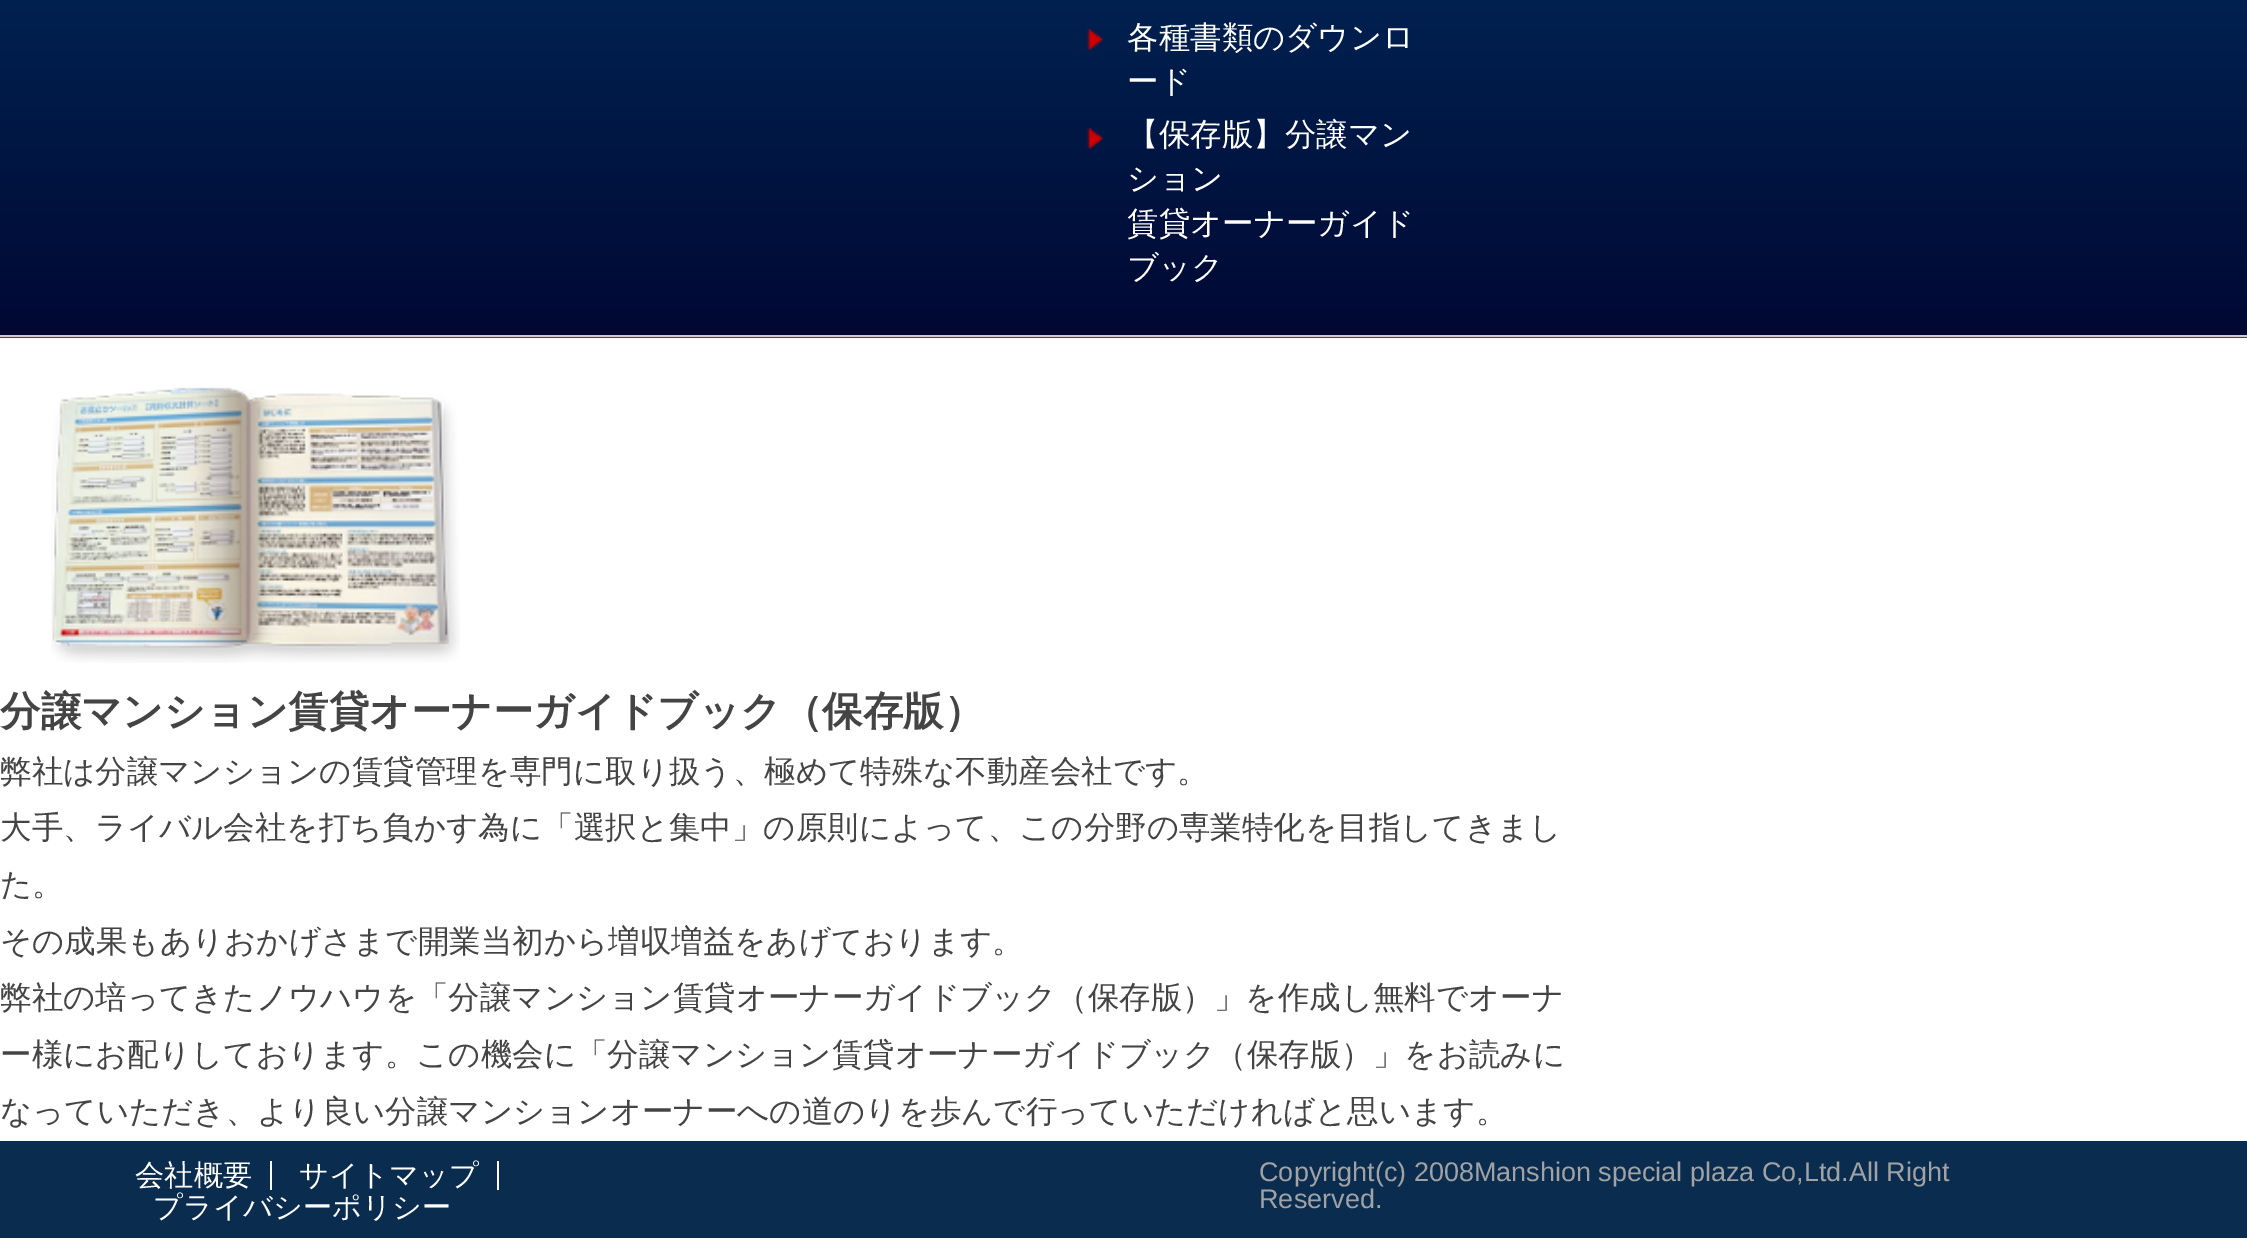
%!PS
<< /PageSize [2247 1238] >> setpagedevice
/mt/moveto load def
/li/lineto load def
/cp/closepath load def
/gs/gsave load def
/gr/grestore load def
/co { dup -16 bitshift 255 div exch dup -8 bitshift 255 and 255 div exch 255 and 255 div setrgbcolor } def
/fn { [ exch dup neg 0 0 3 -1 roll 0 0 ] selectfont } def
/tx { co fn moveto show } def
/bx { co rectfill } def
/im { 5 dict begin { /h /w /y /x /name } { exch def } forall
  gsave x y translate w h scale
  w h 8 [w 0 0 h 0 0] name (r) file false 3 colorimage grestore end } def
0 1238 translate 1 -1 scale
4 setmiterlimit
0 0 2247 1238 16#FFFFFF bx
gs 0 0 mt 2247 0 li 2247 335 li 0 335 li cp clip newpath
<< /ShadingType 2 /ColorSpace /DeviceRGB /Coords [1124 335 1124 -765] /Extend [true true] /Function << /FunctionType 2 /Domain [0 1] /C0 [0 .031 .2] /C1 [0 .349 .569] /N 1 >> >> shfill gr
gs 0 337 mt 2247 337 li 2247 338 li 0 338 li cp clip newpath
<< /ShadingType 2 /ColorSpace /DeviceRGB /Coords [1124 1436 1124 335] /Extend [true true] /Function << /FunctionType 2 /Domain [0 1] /C0 [0 .031 .2] /C1 [0 .349 .569] /N 1 >> >> shfill gr
0 335 2247 2 16#CCCCCC bx
(media/1.raw) 1086 29 17 21 im
(media/2.raw) 1086 128 17 21 im
(media/3.raw) 51 387 409 276 im
0 1141 2247 97 16#0A2C4F bx
270 1161 2 29 16#FFFFFF bx
497 1161 2 29 16#FFFFFF bx
(各種書類のダウンロ) 1127 48 /WenQuanYiZenHei-Medium 31.5 16#FFFFFF tx
(ード) 1127 92 /WenQuanYiZenHei-Medium 31.5 16#FFFFFF tx
(【保存版】分譲マン) 1127 145 /WenQuanYiZenHei-Medium 31.5 16#FFFFFF tx
(ション) 1127 189 /WenQuanYiZenHei-Medium 31.5 16#FFFFFF tx
(賃貸オーナーガイド) 1127 234 /WenQuanYiZenHei-Medium 31.5 16#FFFFFF tx
(ブック) 1127 278 /WenQuanYiZenHei-Medium 31.5 16#FFFFFF tx
(分譲マンション賃貸オーナーガイドブック（保存版）) 0 725 /WenQuanYiZenHei-Bold 40.5 16#444444 tx
(弊社は分譲マンションの賃貸管理を専門に取り扱う、極めて特殊な不動産会社です。) 0 782 /WenQuanYiZenHei-Medium 31.5 16#444444 tx
(大手、ライバル会社を打ち負かす為に「選択と集中」の原則によって、この分野の専業特化を目指してきまし) 0 838 /WenQuanYiZenHei-Medium 31.5 16#444444 tx
(た。) 0 895 /WenQuanYiZenHei-Medium 31.5 16#444444 tx
(その成果もありおかげさまで開業当初から増収増益をあげております。) 0 952 /WenQuanYiZenHei-Medium 31.5 16#444444 tx
(弊社の培ってきたノウハウを「分譲マンション賃貸オーナーガイドブック（保存版）」を作成し無料でオーナ) 0 1008 /WenQuanYiZenHei-Medium 31.5 16#444444 tx
(ー様にお配りしております。この機会に「分譲マンション賃貸オーナーガイドブック（保存版）」をお読みに) 0 1065 /WenQuanYiZenHei-Medium 31.5 16#444444 tx
(なっていただき、より良い分譲マンションオーナーへの道のりを歩んで行っていただければと思います。) 0 1122 /WenQuanYiZenHei-Medium 31.5 16#444444 tx
(会社概要) 135 1185 /WenQuanYiZenHei-Medium 29.25 16#FFFFFF tx
(サイトマップ) 299 1185 /WenQuanYiZenHei-Medium 29.25 16#FFFFFF tx
(プライバシーポリシー) 153 1217 /WenQuanYiZenHei-Medium 29.25 16#FFFFFF tx
(Copyright\(c\) 2008Manshion special plaza Co,Ltd.All Right) 1259 1181 /LiberationSans-Regular 27 16#A0A2A4 tx
(Reserved.) 1259 1208 /LiberationSans-Regular 27 16#A0A2A4 tx
showpage
